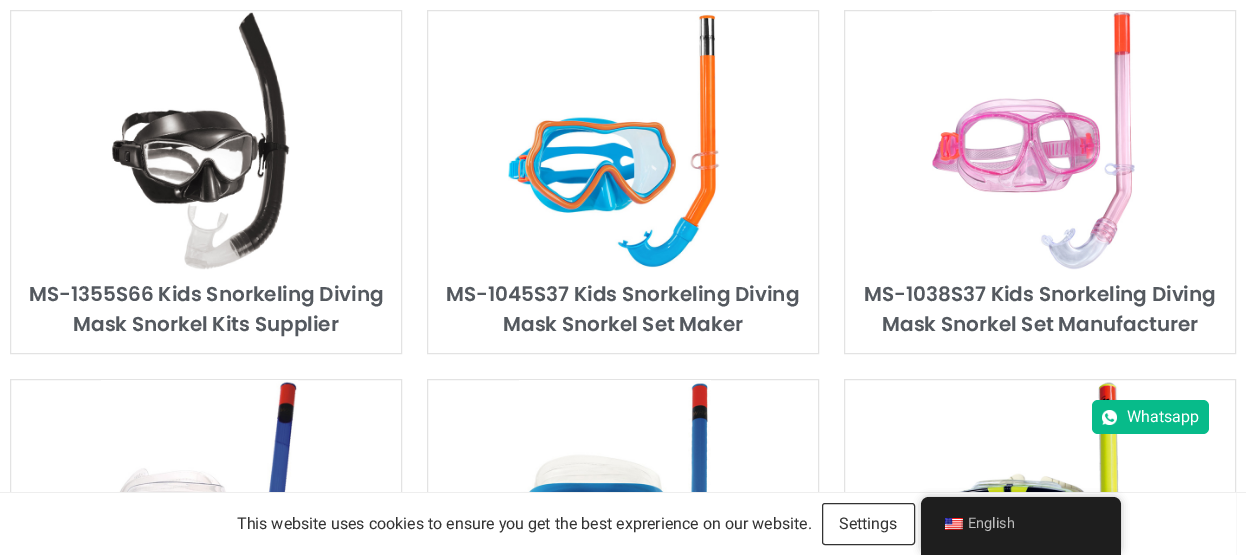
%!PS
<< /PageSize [1246 555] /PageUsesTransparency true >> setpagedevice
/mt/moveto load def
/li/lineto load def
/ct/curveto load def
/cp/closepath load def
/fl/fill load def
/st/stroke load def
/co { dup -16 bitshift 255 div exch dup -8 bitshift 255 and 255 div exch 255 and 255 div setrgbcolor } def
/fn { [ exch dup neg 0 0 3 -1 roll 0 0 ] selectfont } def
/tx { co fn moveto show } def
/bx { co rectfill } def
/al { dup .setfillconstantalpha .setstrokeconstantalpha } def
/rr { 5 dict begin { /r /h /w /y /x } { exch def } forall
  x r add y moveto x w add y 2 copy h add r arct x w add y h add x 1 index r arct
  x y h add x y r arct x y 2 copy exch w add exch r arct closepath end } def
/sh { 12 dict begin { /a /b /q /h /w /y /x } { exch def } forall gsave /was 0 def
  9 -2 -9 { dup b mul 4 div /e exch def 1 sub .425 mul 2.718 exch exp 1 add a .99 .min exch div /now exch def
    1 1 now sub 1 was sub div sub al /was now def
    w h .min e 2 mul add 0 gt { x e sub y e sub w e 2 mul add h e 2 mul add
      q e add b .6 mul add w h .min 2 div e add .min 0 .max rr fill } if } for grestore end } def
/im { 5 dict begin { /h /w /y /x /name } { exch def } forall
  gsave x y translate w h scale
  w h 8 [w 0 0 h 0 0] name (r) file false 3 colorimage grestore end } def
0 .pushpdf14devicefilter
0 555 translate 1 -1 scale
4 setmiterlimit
0 0 1246 555 16#FFFFFF bx
16#E3E3E3 co
10.5 10.5 391 343 rectstroke
(media/1.raw) 112 12 178 258 im
427.5 10.5 391 343 rectstroke
(media/2.raw) 508 14 212 254 im
844.5 10.5 391 343 rectstroke
(media/3.raw) 932 11 203 259 im
10.5 379.5 391 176 rectstroke
(media/4.raw) 101 380 197 112 im
427.5 379.5 391 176 rectstroke
(media/5.raw) 519 380 192 112 im
844.5 379.5 391 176 rectstroke
(media/6.raw) 940 382 183 110 im
16#07BB8A co
1092 400 117 34 6 rr fl
(media/7.raw) 1102 410 15 15 im
10 493 1226 62 16#FFFFFF bx
0 492 1246 1 16#EEEEEE bx
16#333333 co
822.5 503.5 92 41 2.5 rr st
16#000000 co
921 497 200 58 8 4 .25 sh
16#1E1E1E co
929 497 mt 1113 497 li 1117.5 497 1121 500.5 1121 505 ct 1121 555 li 921 555 li 921 505 li 921 500.5 924.5 497 929 497 ct cp fl
(media/8.raw) 945 518 18 12 im
(MS-1355S66 Kids Snorkeling Diving) 29 301 /Poppins-SemiBold 20 16#54595F tx
(Mask Snorkel Kits Supplier) 73 331 /Poppins-SemiBold 20 16#54595F tx
(MS-1045S37 Kids Snorkeling Diving) 446 301 /Poppins-SemiBold 20 16#54595F tx
(Mask Snorkel Set Maker) 503 331 /Poppins-SemiBold 20 16#54595F tx
(MS-1038S37 Kids Snorkeling Diving) 864 301 /Poppins-SemiBold 20 16#54595F tx
(Mask Snorkel Set Manufacturer) 882 331 /Poppins-SemiBold 20 16#54595F tx
(Whatsapp) 1127 422 /Roboto-Regular 16 16#FFFFFF tx
(This website uses cookies to ensure you get the best exprerience on our website.) 237 529 /Roboto-Regular 16 16#333333 tx
(Settings) 839 529 /Roboto-Regular 16 16#333333 tx
(English) 968 528 /Roboto-Regular 14.5 16#BDBDBD tx
.poppdf14devicefilter showpage
